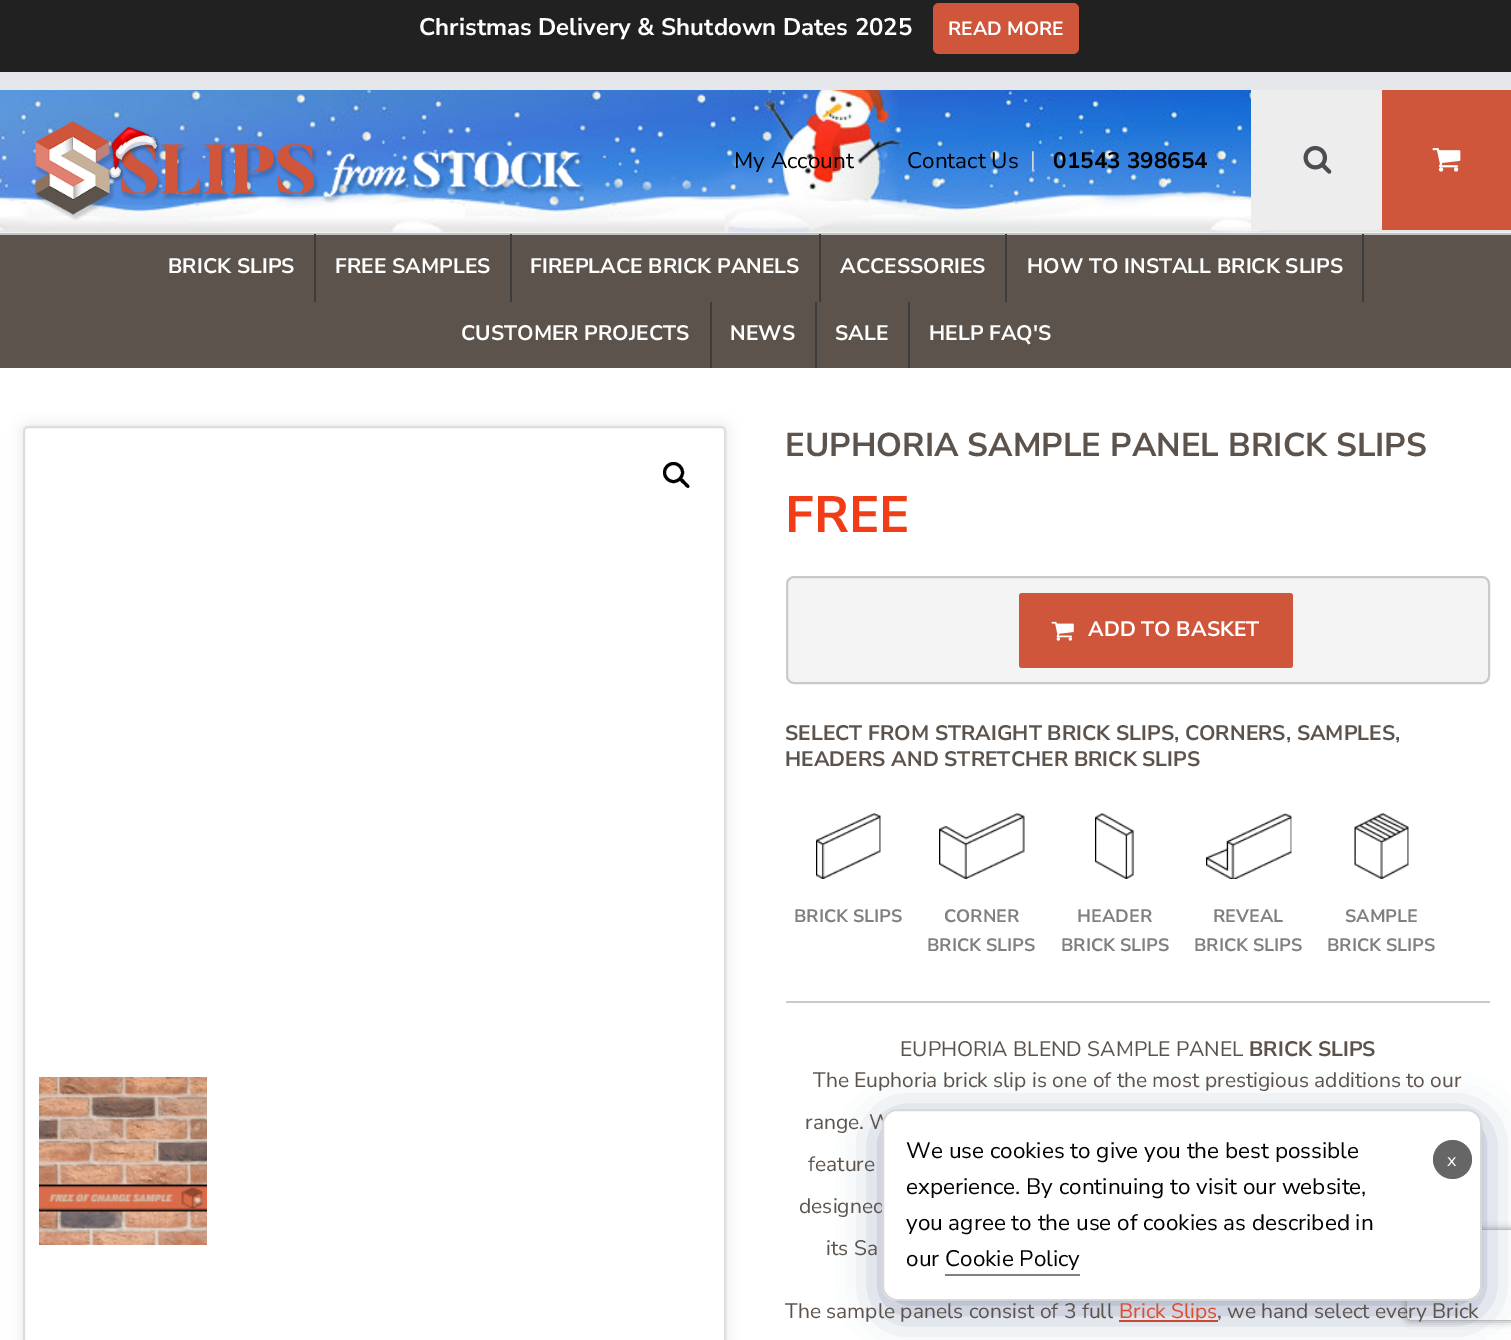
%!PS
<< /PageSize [1511 1340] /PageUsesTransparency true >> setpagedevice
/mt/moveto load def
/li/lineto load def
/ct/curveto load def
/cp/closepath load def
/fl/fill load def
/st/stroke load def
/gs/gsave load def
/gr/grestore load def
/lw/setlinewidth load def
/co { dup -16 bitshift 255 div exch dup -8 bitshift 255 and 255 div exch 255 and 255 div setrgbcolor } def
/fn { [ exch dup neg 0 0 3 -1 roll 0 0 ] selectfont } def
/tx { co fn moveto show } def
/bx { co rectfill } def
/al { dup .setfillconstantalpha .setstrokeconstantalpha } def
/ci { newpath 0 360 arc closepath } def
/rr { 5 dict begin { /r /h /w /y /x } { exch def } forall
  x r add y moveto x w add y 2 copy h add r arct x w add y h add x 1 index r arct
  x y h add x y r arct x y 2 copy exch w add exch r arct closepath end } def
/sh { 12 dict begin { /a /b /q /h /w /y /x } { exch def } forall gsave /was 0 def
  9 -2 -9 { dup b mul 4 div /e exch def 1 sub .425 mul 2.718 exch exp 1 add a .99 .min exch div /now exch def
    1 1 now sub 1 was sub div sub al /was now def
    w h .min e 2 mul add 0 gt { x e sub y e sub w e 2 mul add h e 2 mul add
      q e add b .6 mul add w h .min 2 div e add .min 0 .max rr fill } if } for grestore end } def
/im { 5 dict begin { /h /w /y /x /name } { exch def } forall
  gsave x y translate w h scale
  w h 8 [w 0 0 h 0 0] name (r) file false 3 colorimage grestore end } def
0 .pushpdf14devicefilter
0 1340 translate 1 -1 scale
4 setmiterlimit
0 0 1511 1340 16#FFFFFF bx
0 0 1511 72 16#212121 bx
16#CF563A co
933 3 146 51 6 rr fl
(media/1.raw) 0 90 1511 143 im
0 72 1511 18 16#E5E7EB bx
(media/2.raw) 35 121 550 99 im
1251 90 131 140 16#EEEDED bx
(media/3.raw) 1303 145 29 29 im
1382 90 129 140 16#CF563A bx
(media/4.raw) 1432 148 29 24 im
0 235 1511 133 16#5C534C bx
0 233 1511 2 16#C4C4C4 bx
314 234 2 68 16#3C3C3C bx
510 234 2 68 16#3C3C3C bx
819 234 2 68 16#3C3C3C bx
1005 234 2 68 16#3C3C3C bx
1362 234 2 68 16#3C3C3C bx
710 302 2 66 16#3C3C3C bx
815 302 2 66 16#3C3C3C bx
908 302 2 66 16#3C3C3C bx
gs
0 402 mt 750 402 li 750 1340 li 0 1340 li cp 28 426 mt 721 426 li 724 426 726 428 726 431 ct 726 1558 li 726 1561 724 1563 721 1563 ct 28 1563 li 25 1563 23 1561 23 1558 ct 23 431 li 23 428 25 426 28 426 ct cp eoclip newpath
16#000000 co
23 426 703 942 5 7.5 .1 sh
gr
16#DDDDDD co
2 lw
24 427 701 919 4 rr st
16#000000 co
3 lw
673.5 472.5 9 ci st
680.5 479 mt 682 477 685 481 685.5 482 ct 686.5 483 690.5 485.5 689 487.5 ct 687 489 684.5 485 683.5 484 ct 682.5 483.5 678.5 480.5 680.5 479 ct cp fl
(media/5.raw) 39 1077 168 168 im
16#F4F4F4 co
787 577 702 106 7 rr gs fl gr
16#CACACA co
2 lw
st
16#CF563A co
1019 593 274 75 3 rr fl
(media/6.raw) 1051 621 23 20 im
(media/7.raw) 816 813 65 66 im
(media/8.raw) 939 813 86 66 im
(media/9.raw) 1095 813 39 66 im
(media/10.raw) 1206 813 86 66 im
(media/11.raw) 1354 813 55 66 im
786 1001 704 2 16#CACACA bx
1119 1320 99 2 16#DF4C2E bx
16#172B63 co
882 1119 600 192 15 21 .4 sh
gs
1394 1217 mt 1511 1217 li 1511 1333 li 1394 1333 li cp 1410 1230 mt 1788 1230 li 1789.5 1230 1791 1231.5 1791 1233 ct 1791 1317 li 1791 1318.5 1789.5 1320 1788 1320 ct 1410 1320 li 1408.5 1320 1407 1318.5 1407 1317 ct 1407 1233 li 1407 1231.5 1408.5 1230 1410 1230 ct cp eoclip newpath
16#808080 co
1407 1230 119 90 3 4 1 sh
gr
(Christmas Delivery & Shutdown Dates 2025) 419 35 /NunitoSans-Bold 24 16#FFFFFF tx
(READ MORE) 948 35 /NunitoSans-Bold 19.25 16#FFFFFF tx
(My Account) 734 168 /NunitoSans-Regular 22.5 16#000000 tx
(Contact Us) 907 168 /NunitoSans-Regular 22.5 16#000000 tx
(|) 1030 166 /NunitoSans-Regular 21 16#D6D6D6 tx
(01543 398654) 1053 168 /NunitoSans-Bold 22.5 16#000000 tx
(BRICK SLIPS) 168 273 /NunitoSans-Bold 21 16#FFFFFF tx
(FREE SAMPLES) 335 273 /NunitoSans-Bold 21 16#FFFFFF tx
(FIREPLACE BRICK PANELS) 530 273 /NunitoSans-Bold 21 16#FFFFFF tx
(ACCESSORIES) 840 273 /NunitoSans-Bold 21 16#FFFFFF tx
(HOW TO INSTALL BRICK SLIPS) 1027 273 /NunitoSans-Bold 21 16#FFFFFF tx
(CUSTOMER PROJECTS) 461 340 /NunitoSans-Bold 21 16#FFFFFF tx
(NEWS) 730 340 /NunitoSans-Bold 21 16#FFFFFF tx
(SALE) 835 340 /NunitoSans-Bold 21 16#FFFFFF tx
(HELP FAQ'S) 929 340 /NunitoSans-Bold 21 16#FFFFFF tx
(EUPHORIA SAMPLE PANEL BRICK SLIPS) 785 456 /NunitoSans-Bold 33 16#5C534C tx
(FREE) 785 532 /NunitoSans-Bold 51 16#F03C17 tx
(ADD TO BASKET) 1088 636 /NunitoSans-Bold 21 16#FFFFFF tx
(SELECT FROM STRAIGHT BRICK SLIPS, CORNERS, SAMPLES,) 785 740 /NunitoSans-Bold 21 16#5C534C tx
(HEADERS AND STRETCHER BRICK SLIPS) 785 766 /NunitoSans-Bold 21 16#5C534C tx
(BRICK SLIPS) 794 922 /NunitoSans-Bold 18 16#808080 tx
(CORNER) 944 922 /NunitoSans-Bold 18 16#808080 tx
(BRICK SLIPS) 927 951 /NunitoSans-Bold 18 16#808080 tx
(HEADER) 1077 922 /NunitoSans-Bold 18 16#808080 tx
(BRICK SLIPS) 1061 951 /NunitoSans-Bold 18 16#808080 tx
(REVEAL) 1213 922 /NunitoSans-Bold 18 16#808080 tx
(BRICK SLIPS) 1194 951 /NunitoSans-Bold 18 16#808080 tx
(SAMPLE) 1345 922 /NunitoSans-Bold 18 16#808080 tx
(BRICK SLIPS) 1327 951 /NunitoSans-Bold 18 16#808080 tx
(EUPHORIA BLEND SAMPLE PANEL) 900 1056 /NunitoSans-Regular 21 16#5C534C tx
(BRICK SLIPS) 1249 1056 /NunitoSans-Bold 21 16#5C534C tx
(The Euphoria brick slip is one of the most prestigious additions to our) 813 1087 /NunitoSans-Regular 21 16#5C534C tx
(range. W) 805 1129 /NunitoSans-Regular 21 16#5C534C tx
(feature) 808 1171 /NunitoSans-Regular 21 16#5C534C tx
(designed) 799 1213 /NunitoSans-Regular 21 16#5C534C tx
(its Sa) 826 1255 /NunitoSans-Regular 21 16#5C534C tx
(The sample panels consist of 3 full) 785 1318 /NunitoSans-Regular 21 16#5C534C tx
(Brick Slips) 1119 1318 /NunitoSans-Regular 21 16#DF4C2E tx
(, we hand select every Brick) 1217 1318 /NunitoSans-Regular 21 16#5C534C tx
16#FFFFFF co
882 1109 600 192 15 rr fl
0.15 al
16#000000 co
883 1110 598 190 14 rr st
1 al
(We use cookies to give you the best possible) 906 1158 /NunitoSans-Regular 22.5 16#000000 tx
(experience. By continuing to visit our website,) 906 1194 /NunitoSans-Regular 22.5 16#000000 tx
(you agree to the use of cookies as described in) 906 1230 /NunitoSans-Regular 22.5 16#000000 tx
(our Cookie Policy) 906 1266 /NunitoSans-Regular 22.5 16#000000 tx
945 1274 135 2 16#808080 bx
16#666666 co
1452.5 1159.5 19.5 ci fl
(x) 1447 1166 /NunitoSans-Regular 18 16#FFFFFF tx
.poppdf14devicefilter showpage
